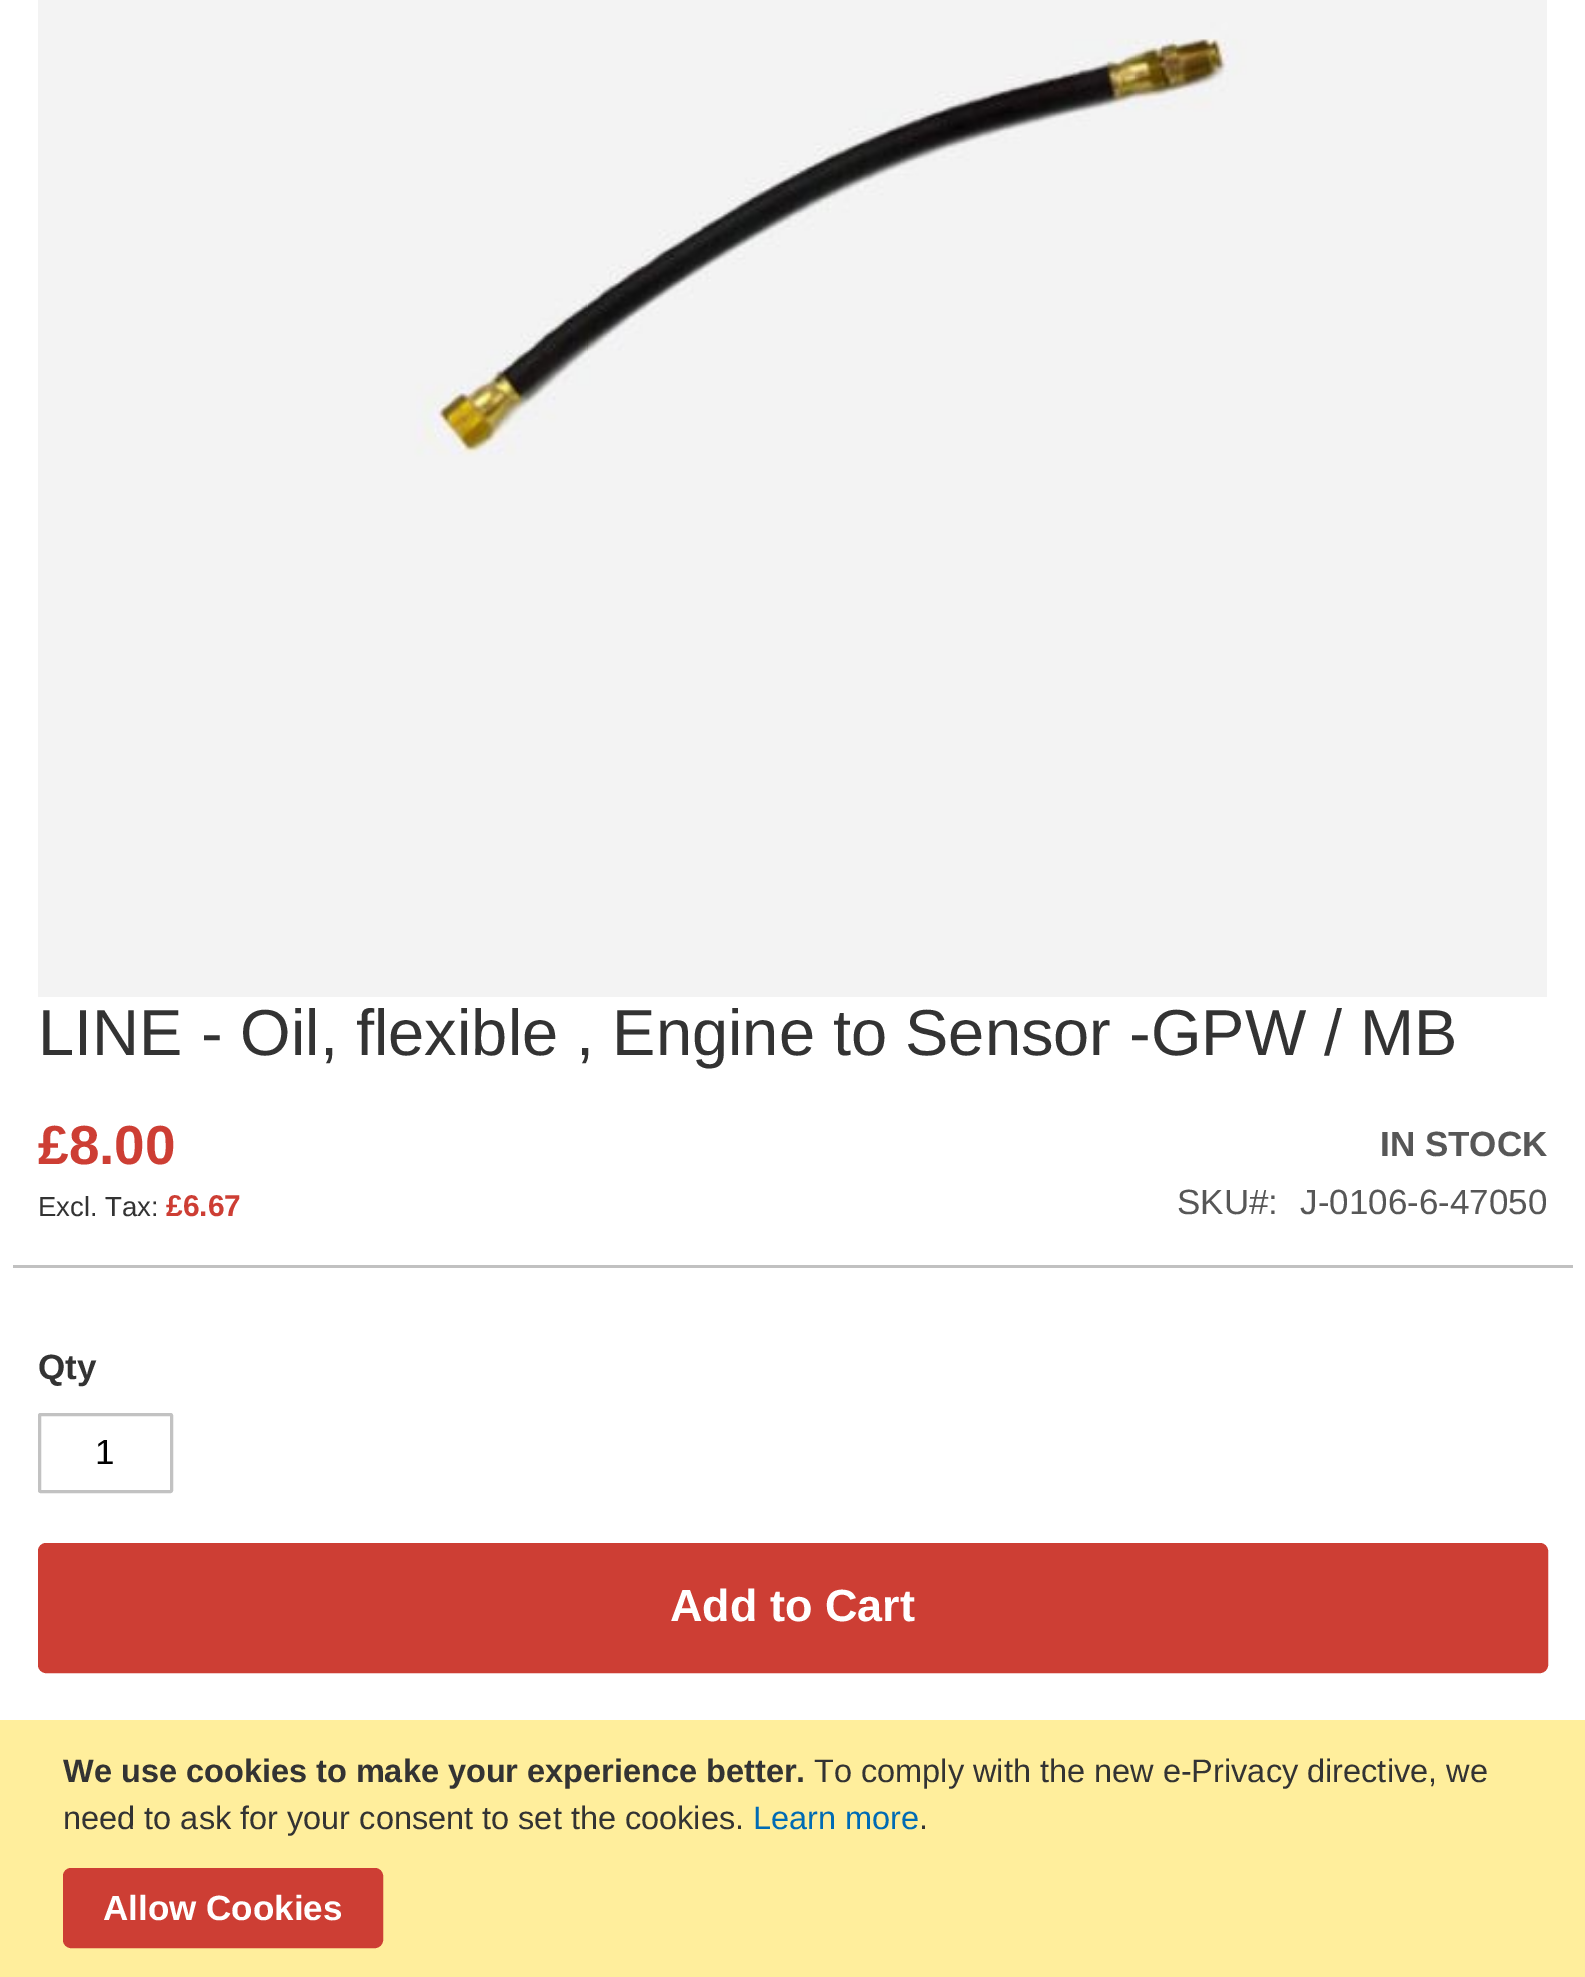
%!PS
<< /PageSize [1585 1977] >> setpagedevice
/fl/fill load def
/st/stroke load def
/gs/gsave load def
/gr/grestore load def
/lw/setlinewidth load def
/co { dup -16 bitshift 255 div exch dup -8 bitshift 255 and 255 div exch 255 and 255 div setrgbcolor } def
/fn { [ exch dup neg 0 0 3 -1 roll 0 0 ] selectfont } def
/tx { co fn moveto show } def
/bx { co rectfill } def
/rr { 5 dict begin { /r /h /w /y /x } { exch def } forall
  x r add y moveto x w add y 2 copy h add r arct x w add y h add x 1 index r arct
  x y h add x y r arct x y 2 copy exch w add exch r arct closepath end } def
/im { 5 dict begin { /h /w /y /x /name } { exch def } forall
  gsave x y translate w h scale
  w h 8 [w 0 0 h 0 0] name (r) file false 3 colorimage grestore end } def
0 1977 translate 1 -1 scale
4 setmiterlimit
0 0 1585 1977 16#FFFFFF bx
(media/1.raw) 38 0 1509 997 im
13 1265 1560 3 16#C1C1C1 bx
16#C2C2C2 co
3 lw
39.5 1414.5 132 77 1 rr st
16#CD3E34 co
39.5 1544.5 1507 127 6.5 rr gs fl gr
st
0 1720 1585 257 16#FFEE9C bx
16#CD3E34 co
64.5 1869.5 317 77 6.5 rr gs fl gr
st
(LINE - Oil, flexible , Engine to Sensor -GPW / MB) 38 1055 /LiberationSans-Regular 65 16#333333 tx
(£8.00) 38 1164 /LiberationSans-Bold 55 16#CD3E34 tx
(Excl. Tax:) 38 1216 /LiberationSans-Regular 27.5 16#333333 tx
(£6.67) 166 1216 /LiberationSans-Bold 30 16#CD3E34 tx
(IN STOCK) 1380 1156 /LiberationSans-Bold 35 16#575757 tx
(SKU#:) 1177 1214 /LiberationSans-Regular 35 16#575757 tx
(J-0106-6-47050) 1300 1214 /LiberationSans-Regular 35 16#575757 tx
(Qty) 38 1379 /LiberationSans-Bold 35 16#333333 tx
(1) 95 1464 /LiberationSans-Regular 35 16#000000 tx
(Add to Cart) 670 1621 /LiberationSans-Bold 45 16#FFFFFF tx
(We use cookies to make your experience better.) 63 1782 /LiberationSans-Bold 32.5 16#333333 tx
(To comply with the new e-Privacy directive, we) 814 1782 /LiberationSans-Regular 32.5 16#333333 tx
(need to ask for your consent to set the cookies.) 63 1829 /LiberationSans-Regular 32.5 16#333333 tx
(Learn more) 753 1829 /LiberationSans-Regular 32.5 16#006BB4 tx
(.) 919 1829 /LiberationSans-Regular 32.5 16#333333 tx
(Allow Cookies) 103 1920 /LiberationSans-Bold 35 16#FFFFFF tx
showpage
